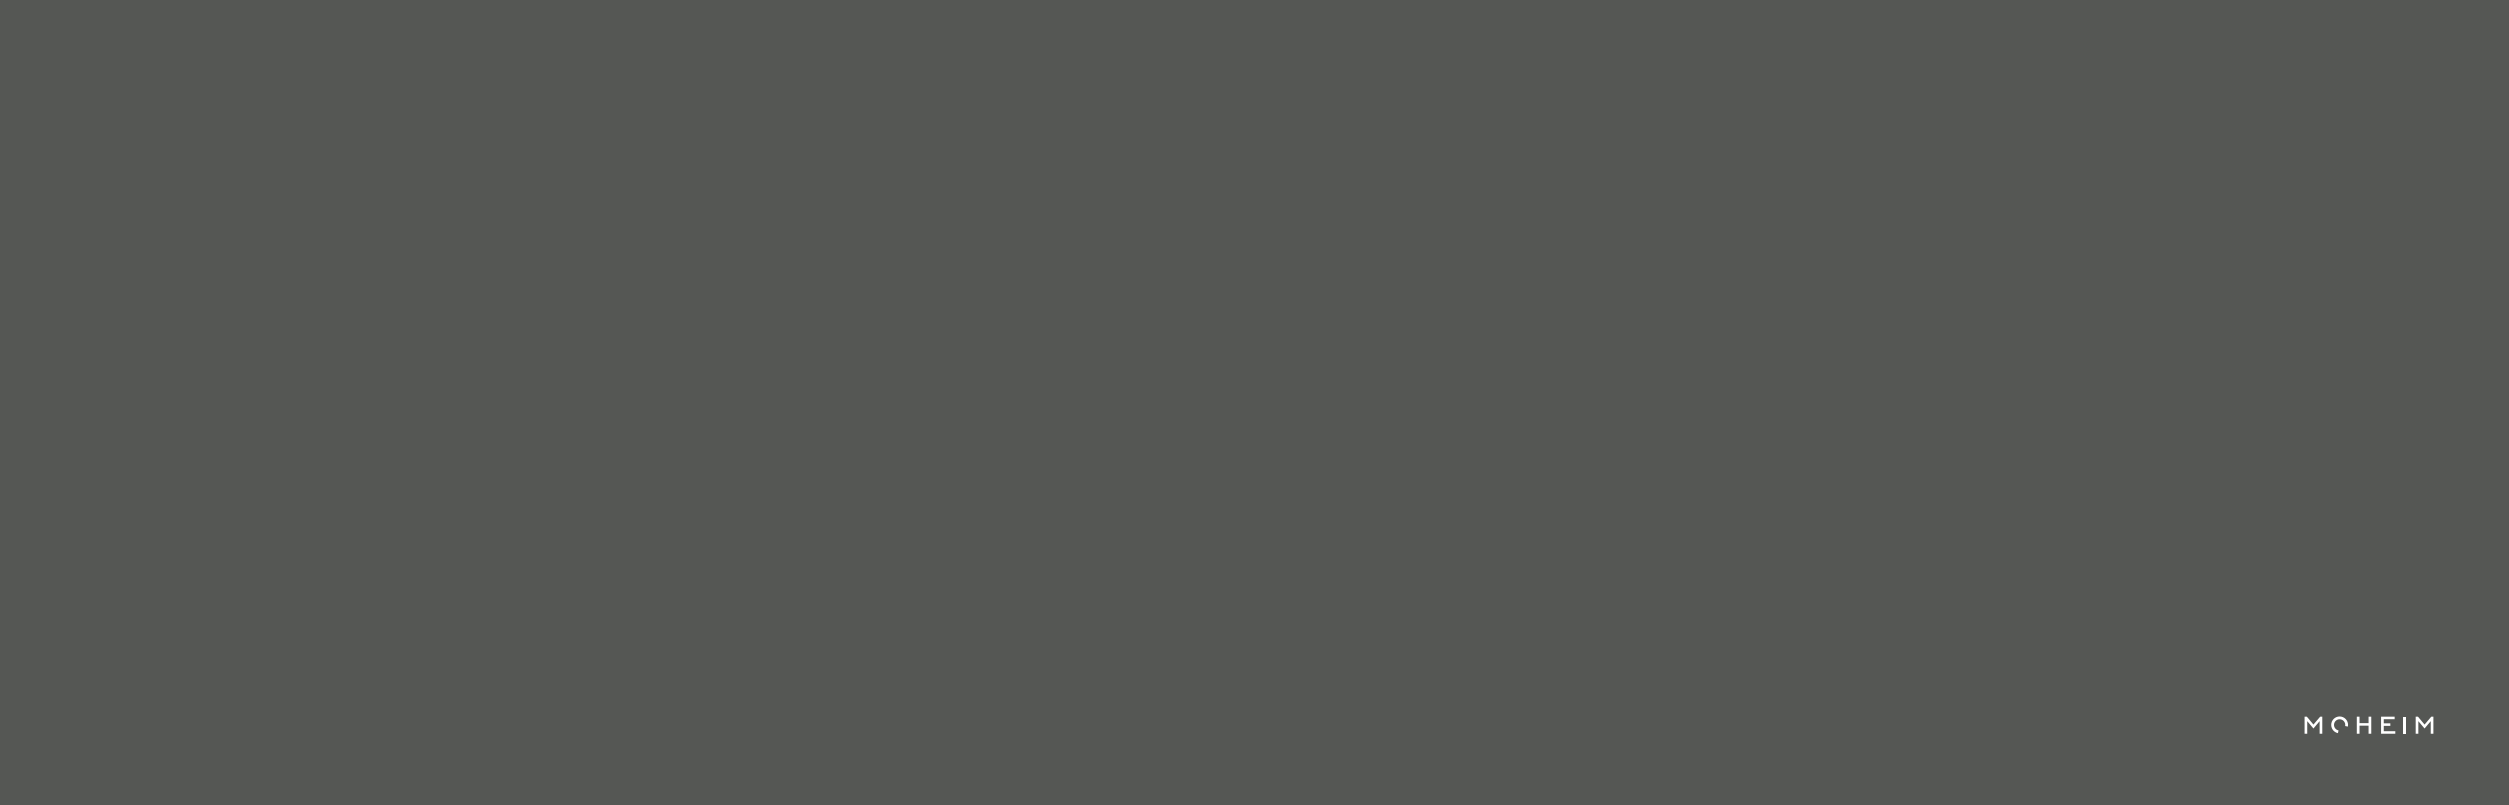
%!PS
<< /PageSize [2509 805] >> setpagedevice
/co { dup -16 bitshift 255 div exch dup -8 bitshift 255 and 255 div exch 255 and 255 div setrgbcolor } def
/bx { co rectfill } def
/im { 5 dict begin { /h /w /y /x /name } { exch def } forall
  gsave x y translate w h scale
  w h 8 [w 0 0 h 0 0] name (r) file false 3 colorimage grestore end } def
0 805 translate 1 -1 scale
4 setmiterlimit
0 0 2509 805 16#555754 bx
(media/1.raw) 2304 716 130 18 im
showpage
